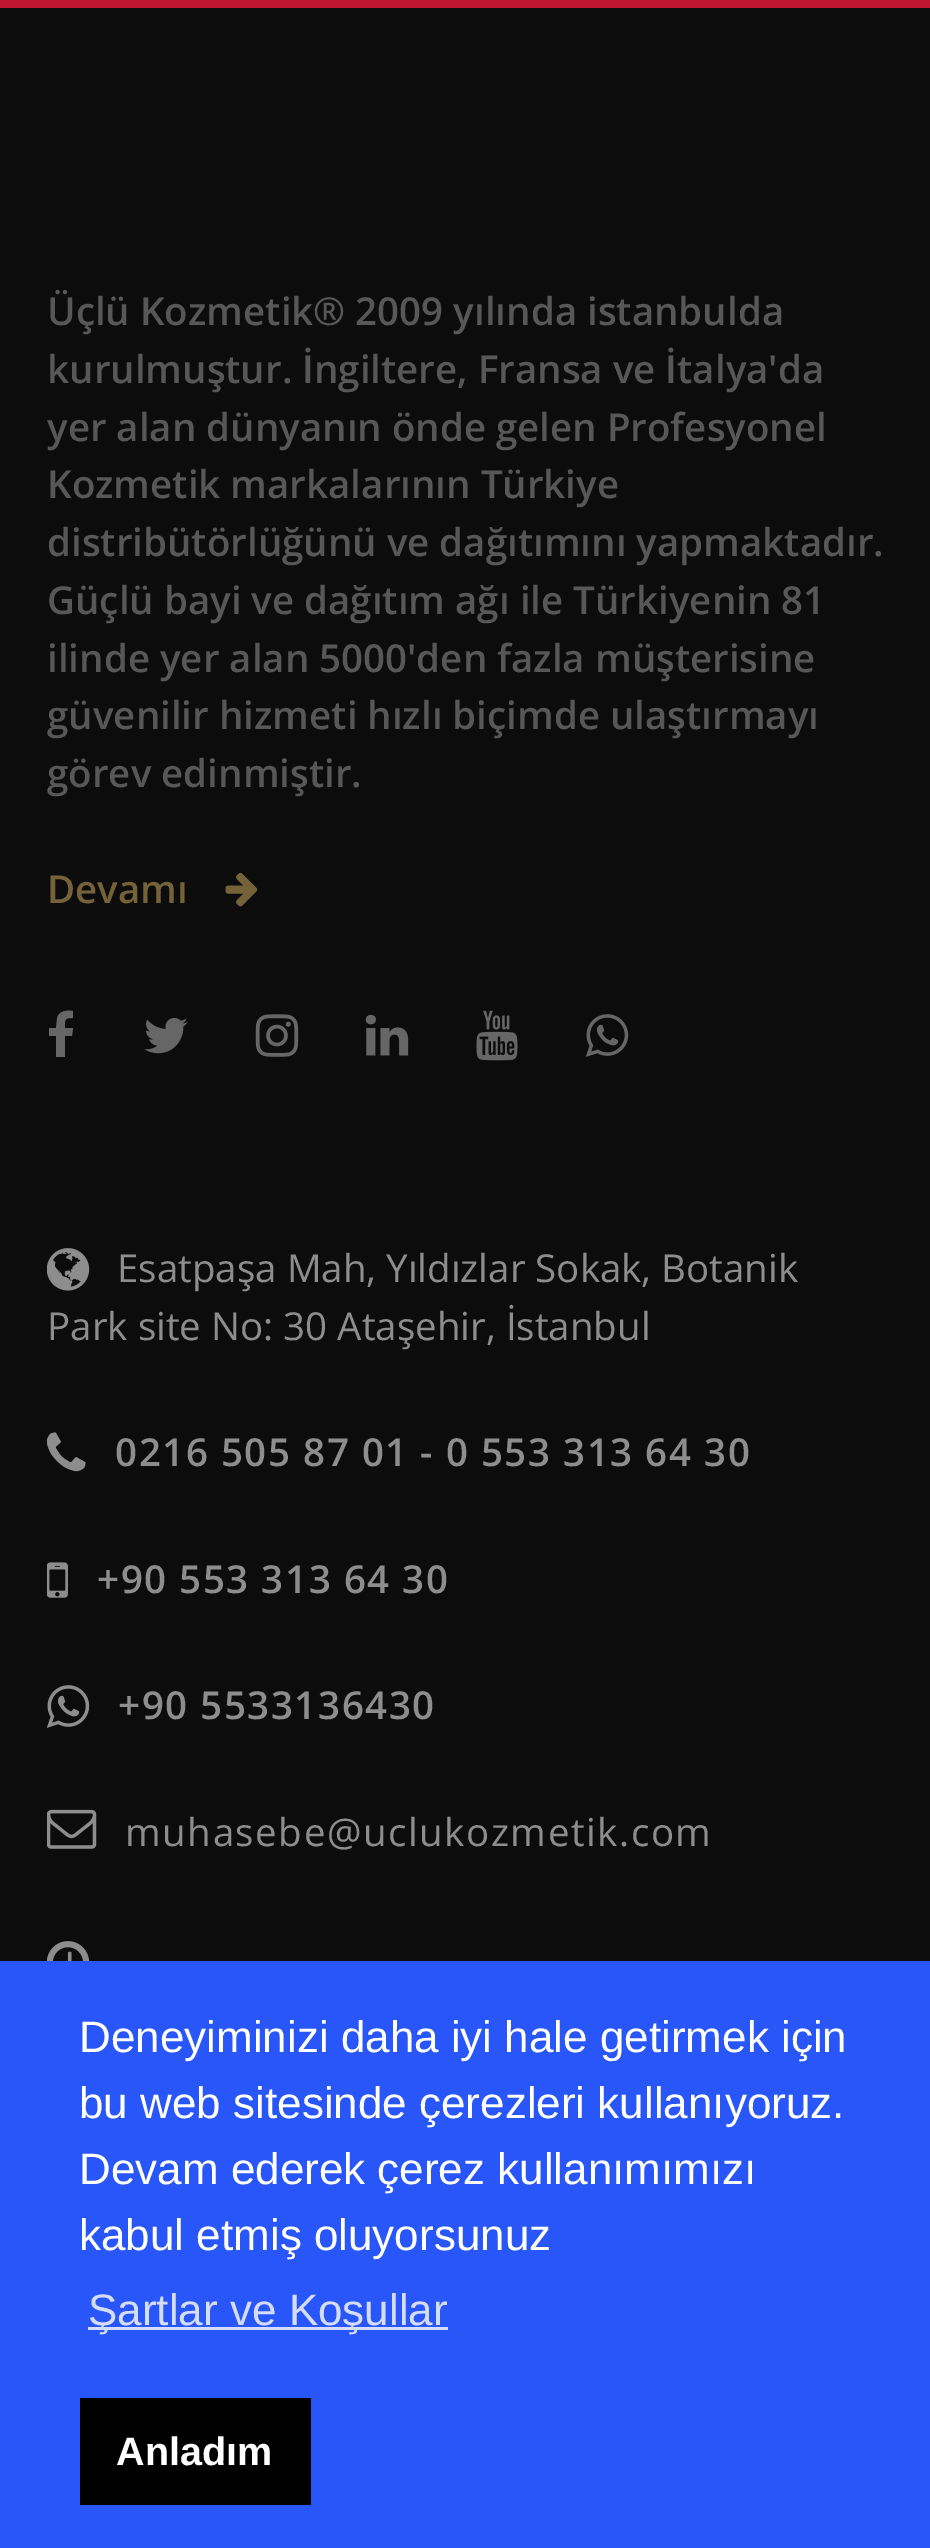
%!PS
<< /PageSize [930 2548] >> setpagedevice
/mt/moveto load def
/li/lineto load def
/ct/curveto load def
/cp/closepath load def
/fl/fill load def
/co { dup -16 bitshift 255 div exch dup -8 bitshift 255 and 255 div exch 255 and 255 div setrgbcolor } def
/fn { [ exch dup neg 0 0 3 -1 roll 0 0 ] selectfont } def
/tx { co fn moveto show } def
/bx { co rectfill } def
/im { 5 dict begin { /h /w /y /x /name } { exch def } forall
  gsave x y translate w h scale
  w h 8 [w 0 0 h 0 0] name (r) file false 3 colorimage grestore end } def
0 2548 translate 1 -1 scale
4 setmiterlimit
0 0 930 2548 16#C11632 bx
0 8 930 1953 16#0C0C0C bx
(media/1.raw) 225 872 33 35 im
16#666666 co
73 1011 mt 66 1010 58 1011 57 1019 ct 56 1028 li 49 1028 li 49 1036 li 56 1036 li 56 1057 li 65 1057 li 65 1036 li 72 1036 li 73 1028 li 65 1028 li 65 1019 64 1018 73 1018 ct cp fl
(media/2.raw) 144 1017 44 37 im
(media/3.raw) 255 1014 44 43 im
(media/4.raw) 365 1014 44 42 im
(media/5.raw) 476 1010 42 51 im
(media/6.raw) 585 1014 44 43 im
(media/7.raw) 47 1248 43 43 im
(media/8.raw) 47 1432 39 40 im
(media/9.raw) 47 1562 21 36 im
(media/10.raw) 47 1685 43 43 im
(media/11.raw) 47 1809 50 40 im
(media/12.raw) 47 1941 43 20 im
0 1961 930 587 16#2956F8 bx
88 2327 360 3 16#D4DDFE bx
80 2398 231 107 16#000000 bx
(Üçlü Kozmetik® 2009 yılında istanbulda) 47 325 /OpenSans-SemiBold 38.5 16#575757 tx
(kurulmuştur. İngiltere, Fransa ve İtalya'da) 47 383 /OpenSans-SemiBold 38.5 16#575757 tx
(yer alan dünyanın önde gelen Profesyonel) 47 441 /OpenSans-SemiBold 38.5 16#575757 tx
(Kozmetik markalarının Türkiye) 47 498 /OpenSans-SemiBold 38.5 16#575757 tx
(distribütörlüğünü ve dağıtımını yapmaktadır.) 47 556 /OpenSans-SemiBold 38.5 16#575757 tx
(Güçlü bayi ve dağıtım ağı ile Türkiyenin 81) 47 614 /OpenSans-SemiBold 38.5 16#575757 tx
(ilinde yer alan 5000'den fazla müşterisine) 47 672 /OpenSans-SemiBold 38.5 16#575757 tx
(güvenilir hizmeti hızlı biçimde ulaştırmayı) 47 729 /OpenSans-SemiBold 38.5 16#575757 tx
(görev edinmiştir.) 47 787 /OpenSans-SemiBold 38.5 16#575757 tx
(Devamı) 47 903 /OpenSans-SemiBold 38.5 16#766239 tx
(Esatpaşa Mah, Yıldızlar Sokak, Botanik) 117 1282 /OpenSans-Regular 38.5 16#8D8D8D tx
(Park site No: 30 Ataşehir, İstanbul) 47 1340 /OpenSans-Regular 38.5 16#8D8D8D tx
/OpenSans-SemiBold 38.5 fn
115 1466 mt 1.55 0 (0216 505 87 01 - 0 553 313 64 30) ashow
97 1593 mt 1.55 0 (+90 553 313 64 30) ashow
118 1719 mt 1.55 0 (+90 5533136430) ashow
/OpenSans-Regular 38.5 fn
125 1846 mt 1.55 0 (muhasebe@uclukozmetik.com) ashow
(Deneyiminizi daha iyi hale getirmek için) 79 2052 /LiberationSans-Regular 44 16#FFFFFF tx
(bu web sitesinde çerezleri kullanıyoruz.) 79 2118 /LiberationSans-Regular 44 16#FFFFFF tx
(Devam ederek çerez kullanımımızı) 79 2184 /LiberationSans-Regular 44 16#FFFFFF tx
(kabul etmiş oluyorsunuz) 79 2250 /LiberationSans-Regular 44 16#FFFFFF tx
(Şartlar ve Koşullar) 88 2325 /LiberationSans-Regular 44 16#D4DDFE tx
(Anladım) 116 2465 /LiberationSans-Bold 39.5 16#FFFFFF tx
showpage
